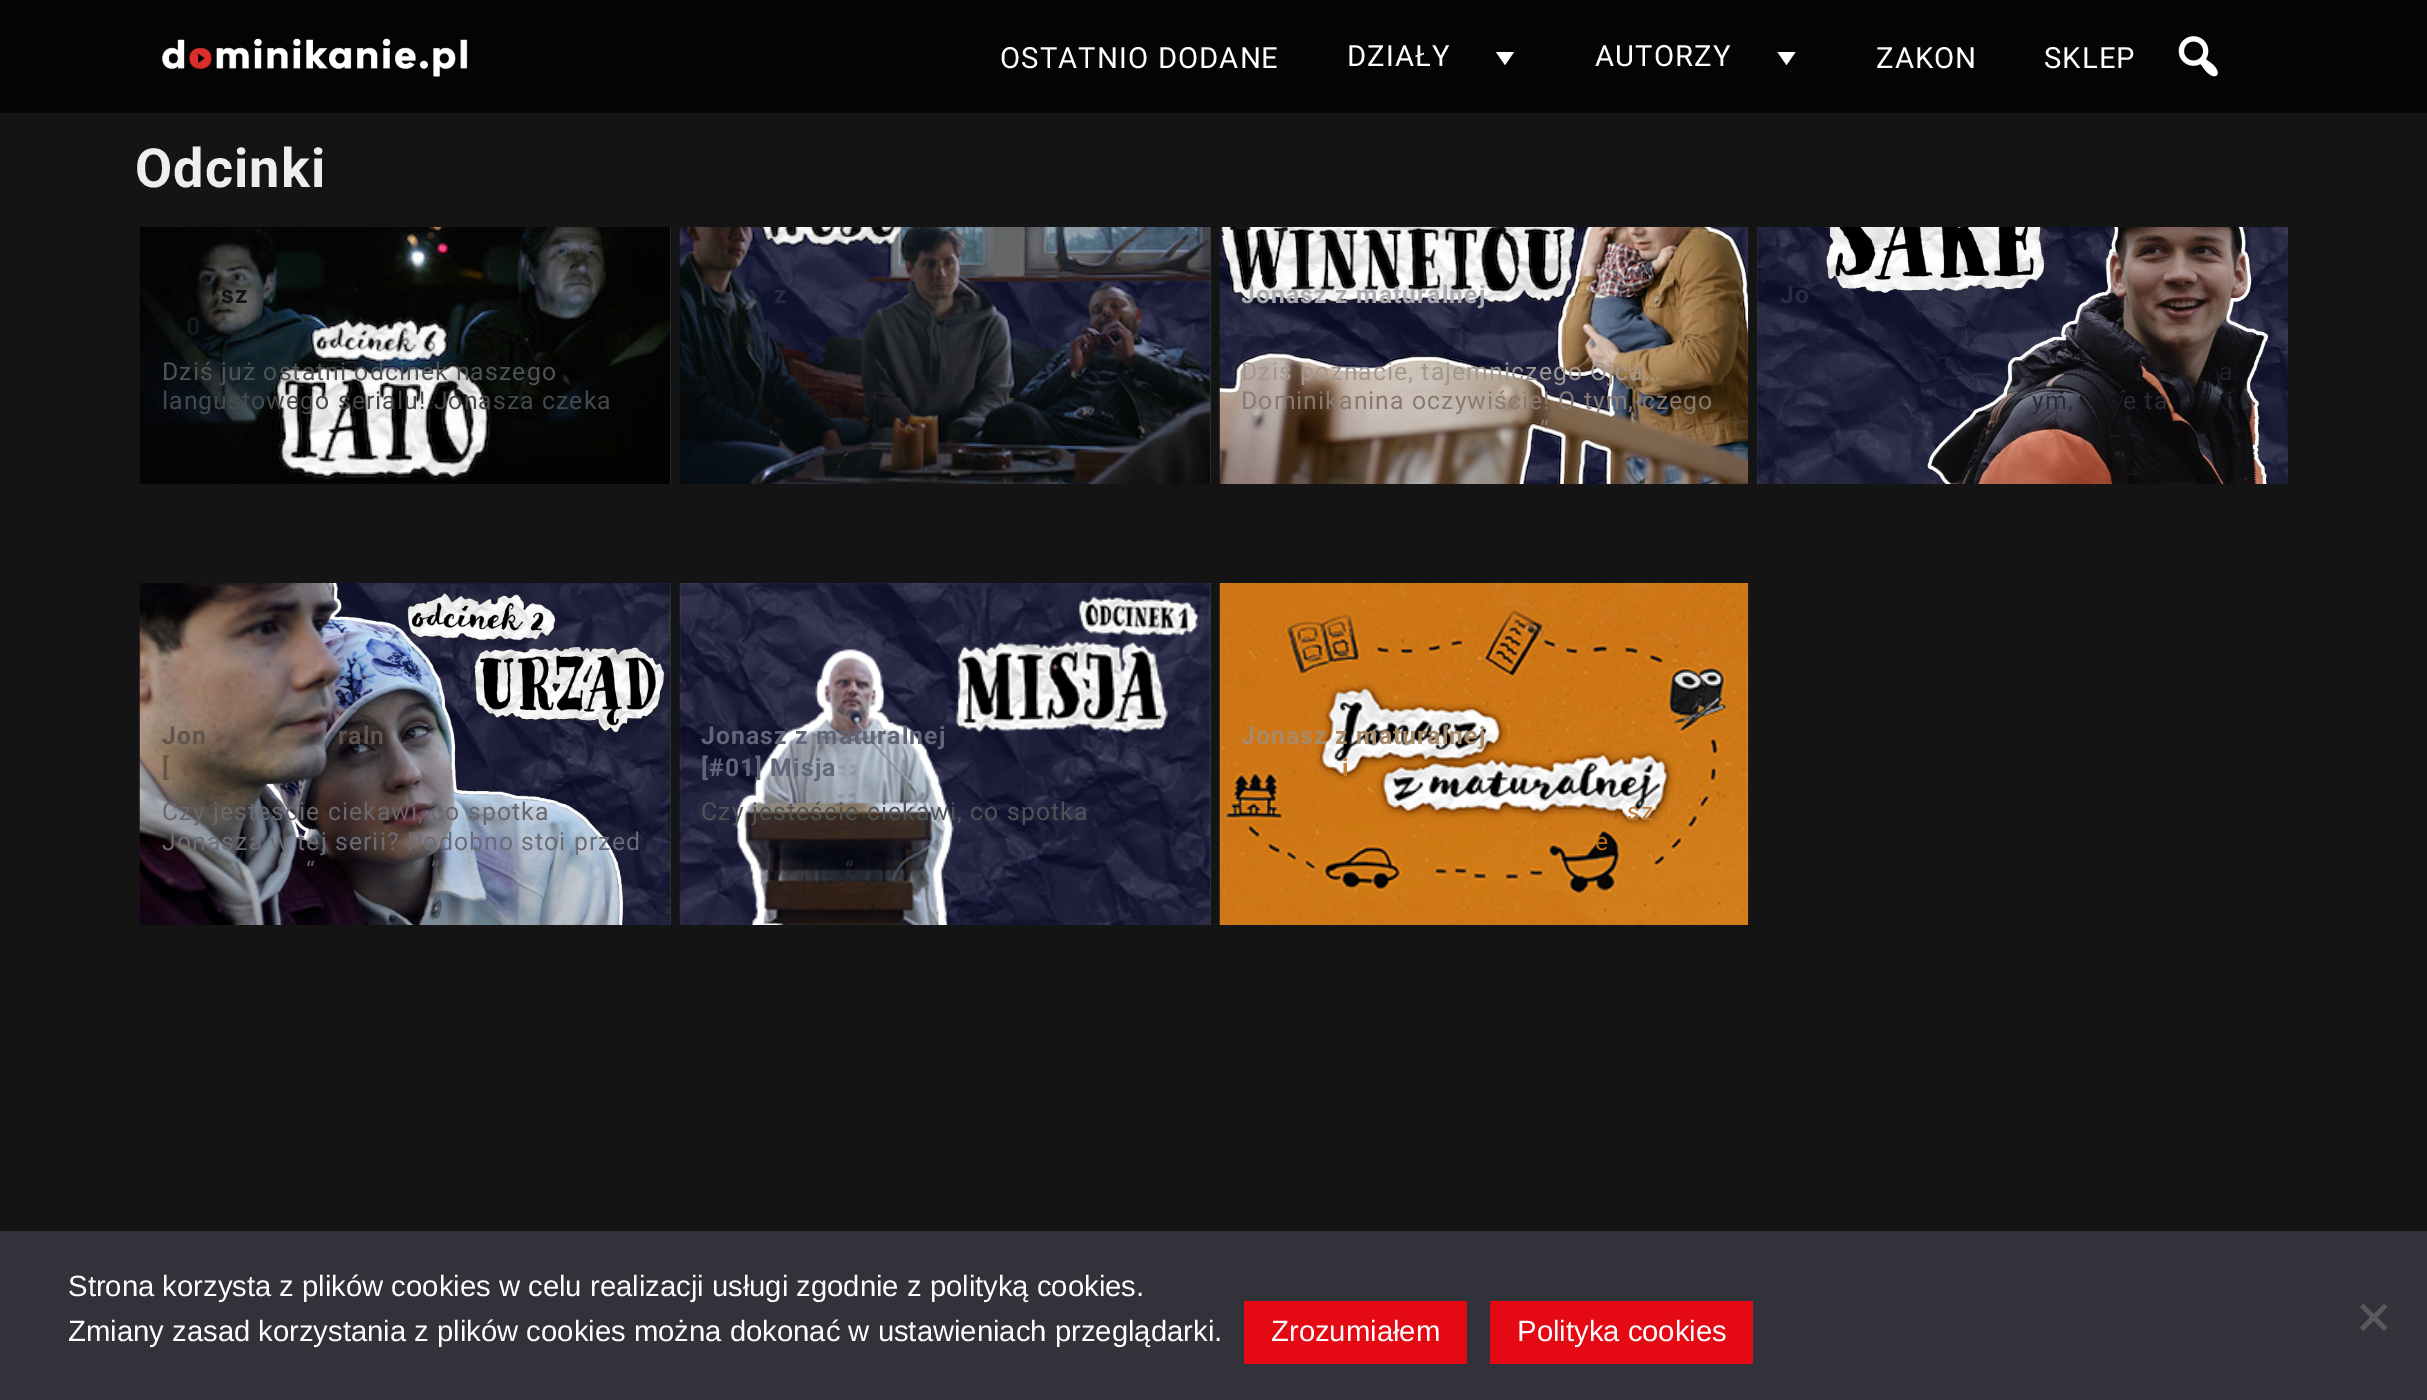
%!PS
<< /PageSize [2427 1400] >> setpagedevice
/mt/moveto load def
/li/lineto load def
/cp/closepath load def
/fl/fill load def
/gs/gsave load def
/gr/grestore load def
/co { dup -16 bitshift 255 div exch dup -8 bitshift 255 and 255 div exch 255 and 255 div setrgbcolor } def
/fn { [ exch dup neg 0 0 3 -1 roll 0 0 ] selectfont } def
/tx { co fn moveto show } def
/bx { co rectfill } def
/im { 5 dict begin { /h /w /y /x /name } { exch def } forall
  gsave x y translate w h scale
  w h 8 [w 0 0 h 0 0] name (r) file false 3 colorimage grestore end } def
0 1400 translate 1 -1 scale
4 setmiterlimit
0 0 2427 1400 16#141414 bx
0 0 2427 113 16#040404 bx
(media/1.raw) 162 38 306 39 im
16#FFFFFF co
1514 52 mt 1505 65 li 1496 52 li cp fl
1795.5 52 mt 1786.5 65 li 1777.5 52 li cp fl
(media/2.raw) 2178 36 40 41 im
670 227 1 257 16#353535 bx
(media/3.raw) 139 227 532 257 im
1210 227 1 257 16#353535 bx
(media/4.raw) 679 227 532 257 im
(media/5.raw) 1219 227 530 257 im
1757 227 1 257 16#353535 bx
(media/6.raw) 1757 227 531 257 im
670 583 1 342 16#353535 bx
(media/7.raw) 139 583 532 342 im
1210 583 1 342 16#353535 bx
(media/8.raw) 679 583 532 342 im
(media/9.raw) 1219 583 530 342 im
0 1231 2427 169 16#32323A bx
1244 1301 223 63 16#E50914 bx
1490 1301 263 63 16#E50914 bx
16#59595D co
2384 1304 mt 2387.5 1307 li 2363.5 1331 li 2360 1327.5 li cp fl
2360 1307 mt 2363.5 1304 li 2387.5 1327.5 li 2384 1331 li cp fl
/Roboto-Regular 29.25 fn
16#FFFFFF co
1000 68 mt 1.1 0 (OSTATNIO DODANE) ashow
1347 66 mt 1.1 0 (DZIAŁY) ashow
1595 66 mt 1.1 0 (AUTORZY) ashow
1876 68 mt 1.1 0 (ZAKON) ashow
2044 68 mt 1.1 0 (SKLEP) ashow
/Roboto-Bold 54 fn
16#EEEEEE co
135 187 mt 1.1 0 (Odcinki) ashow
/Roboto-Bold 24.75 fn
16#141414 co
221 303 mt 1.1 0 (sz) ashow
16#141A1D co
186 335 mt 1.1 0 (0) ashow
/Roboto-Regular 24.75 fn
16#4E5355 co
162 380 mt 1.1 0 (Dziś już ostatni odcinek naszego) ashow
16#45494B co
162 409 mt 1.1 0 (langustowego serialu! Jonasza czeka) ashow
/Roboto-Bold 24.75 fn
16#28293A co
774 303 mt 1.1 0 (z) ashow
gs
1242 281 484 63 rectclip
16#A9A9B0 co
1241 303 mt 1.1 0 (Jonasz z maturalnej) ashow
gr
/Roboto-Regular 24.75 fn
16#A29691 co
1241 380 mt 1.1 0 (Dziś poznacie, tajemniczego Ojca…) ashow
16#887A71 co
1241 409 mt 1.1 0 (Dominikanina oczywiście! O tym, czego) ashow
16#8C7A6B co
1540 438 mt 1.1 0 (“) ashow
/Roboto-Bold 24.75 fn
16#292A41 co
1780 303 mt 1.1 0 (Jo) ashow
/Roboto-Regular 24.75 fn
16#201F2D co
2219 380 mt 1.1 0 (a) ashow
16#28293A co
2032 409 mt 1.1 0 (ym,) ashow
2123 409 mt 1.1 0 (e ta) ashow
2227 409 mt 1.1 0 (i) ashow
/Roboto-Bold 24.75 fn
16#61534D co
162 744 mt 1.1 0 (Jon) ashow
338 744 mt 1.1 0 (raln) ashow
16#635547 co
162 776 mt 1.1 0 ([) ashow
/Roboto-Regular 24.75 fn
16#69666C co
162 820 mt 1.1 0 (Czy jesteście ciekawi, co spotka) ashow
16#696B76 co
162 850 mt 1.1 0 (Jonasza w tej serii? Podobno stoi przed) ashow
16#575864 co
306 879 mt 1.1 0 (“) ashow
431 879 mt 1.1 0 (”) ashow
/Roboto-Bold 24.75 fn
16#626577 co
701 744 mt 1.1 0 (Jonasz z maturalnej) ashow
701 776 mt 1.1 0 ([#01] Misja) ashow
/Roboto-Regular 24.75 fn
16#4E5355 co
701 820 mt 1.1 0 (Czy jesteście ciekawi, co spotka) ashow
16#28293A co
845 879 mt 1.1 0 (“) ashow
gs
1242 722 484 63 rectclip
/Roboto-Bold 24.75 fn
16#A98A68 co
1241 744 mt 1.1 0 (Jonasz z maturalnej) ashow
gr
/Roboto-Bold 24.75 fn
16#C77F30 co
1342 776 mt 1.1 0 (i) ashow
/Roboto-Regular 24.75 fn
16#C07A2D co
1627 820 mt 1.1 0 (sz) ashow
16#C27216 co
1595 850 mt 1.1 0 (e) ashow
(Strona korzysta z plików cookies w celu realizacji usługi zgodnie z polityką cookies.) 68 1296 /LiberationSans-Regular 29.25 16#FFFFFF tx
(Zmiany zasad korzystania z plików cookies można dokonać w ustawieniach przeglądarki.) 68 1341 /LiberationSans-Regular 29.25 16#FFFFFF tx
(Zrozumiałem) 1271 1341 /LiberationSans-Regular 29.25 16#FFFFFF tx
(Polityka cookies) 1517 1341 /LiberationSans-Regular 29.25 16#FFFFFF tx
showpage
